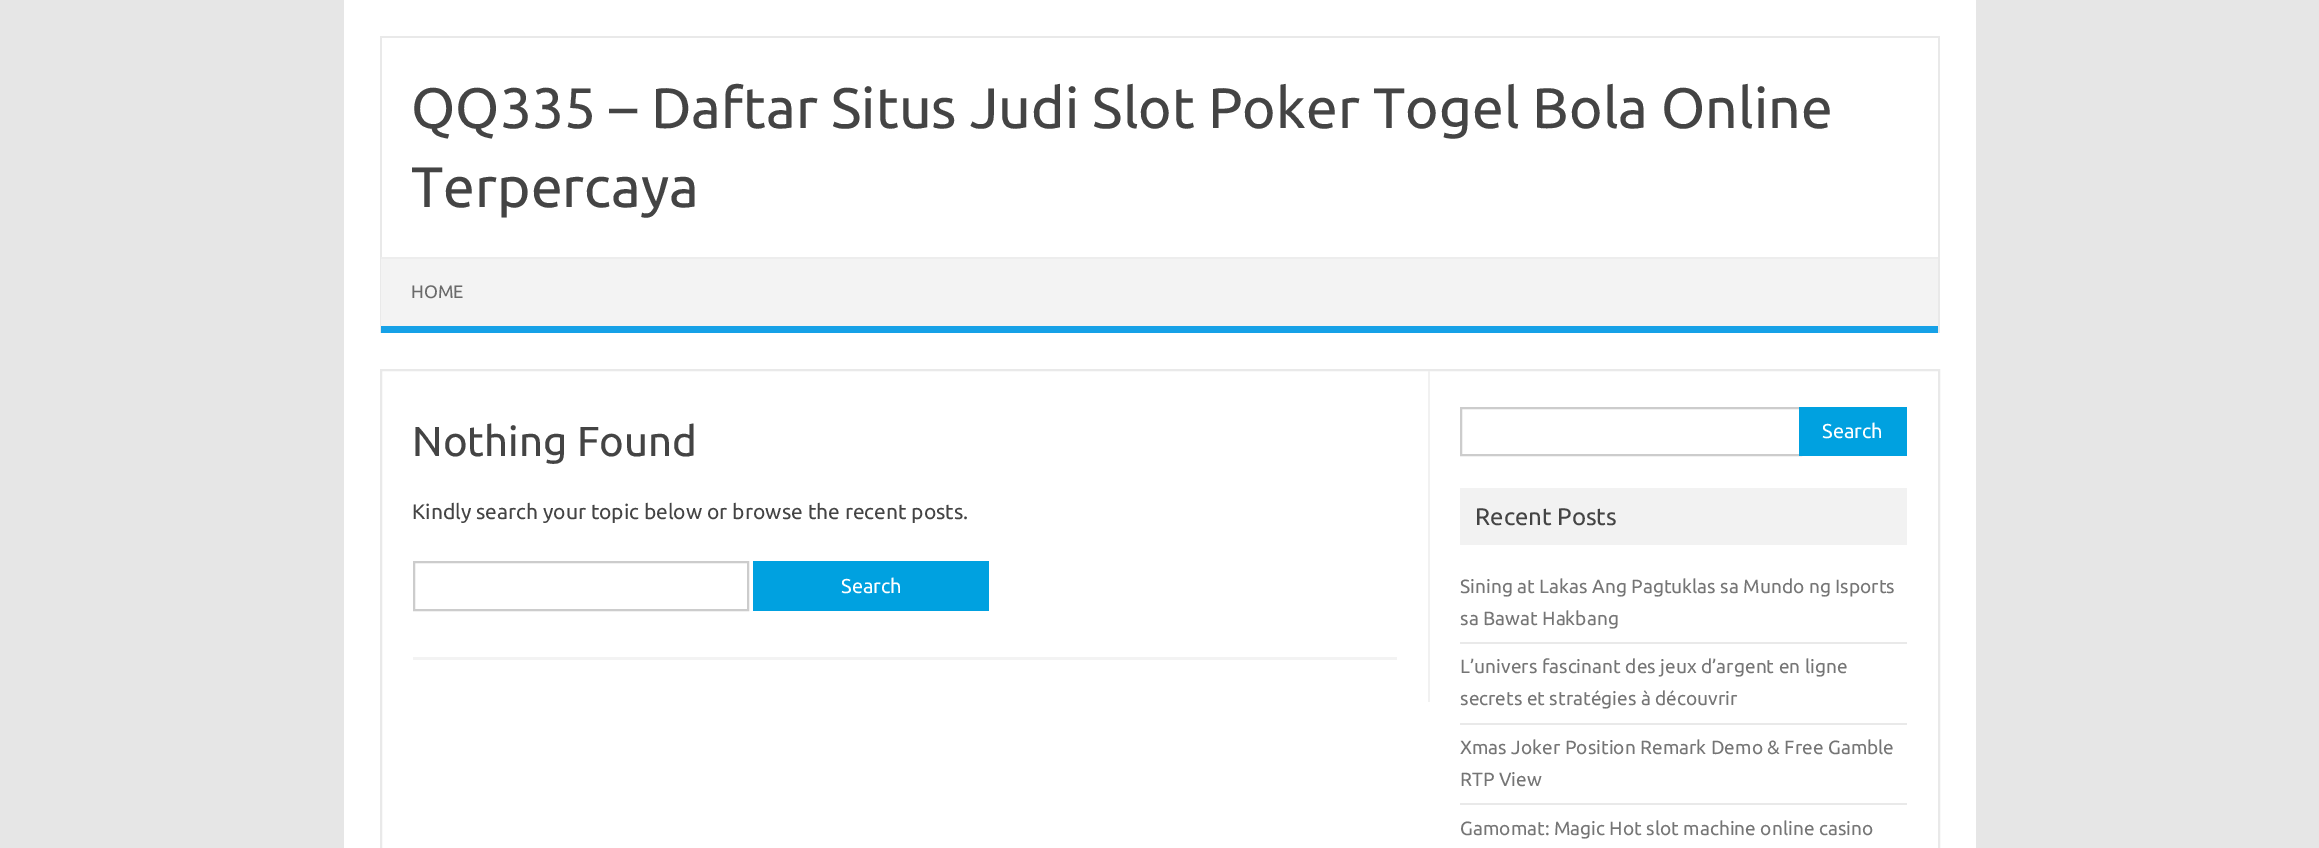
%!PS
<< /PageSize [2319 848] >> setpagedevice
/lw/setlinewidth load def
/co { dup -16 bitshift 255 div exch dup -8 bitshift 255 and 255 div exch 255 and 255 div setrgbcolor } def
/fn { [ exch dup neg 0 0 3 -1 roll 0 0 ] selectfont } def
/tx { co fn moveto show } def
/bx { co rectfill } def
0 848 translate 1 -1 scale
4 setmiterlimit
0 0 2319 848 16#E6E6E6 bx
344 0 1632 848 16#FFFFFF bx
380 36 1560 2 16#E9E9E9 bx
1938 36 2 297 16#E9E9E9 bx
380 36 2 297 16#E9E9E9 bx
381 259 1557 67 16#F3F3F3 bx
381 257 1557 2 16#EDEDED bx
381 326 1557 7 16#16A1E7 bx
16#E9E9E9 co
2 lw
381 370 1558 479 rectstroke
1428 371 2 331 16#F1F1F1 bx
413 657 984 3 16#F3F3F3 bx
16#CCCCCC co
414 562 334 48 rectstroke
753 561 236 50 16#00A1E0 bx
16#CCCCCC co
1461 408 340 47 rectstroke
1799 407 108 49 16#00A1E0 bx
1460 488 447 57 16#F2F2F2 bx
1460 642 447 2 16#E9E9E9 bx
1460 723 447 2 16#E9E9E9 bx
1460 803 447 2 16#E9E9E9 bx
(QQ335 – Daftar Situs Judi Slot Poker Togel Bola Online) 411 128 /Ubuntu-Regular 57 16#444444 tx
(Terpercaya) 411 207 /Ubuntu-Regular 57 16#444444 tx
(HOME) 411 298 /Ubuntu-Regular 18 16#6A6A6A tx
(Nothing Found) 412 456 /Ubuntu-Regular 42 16#444444 tx
(Kindly search your topic below or browse the recent posts.) 412 519 /Ubuntu-Regular 21 16#444444 tx
(Search) 841 593 /Ubuntu-Regular 20 16#FFFFFF tx
(Search) 1822 438 /Ubuntu-Regular 20 16#FFFFFF tx
(Recent Posts) 1475 525 /Ubuntu-Regular 24 16#444444 tx
(Sining at Lakas Ang Pagtuklas sa Mundo ng Isports) 1460 593 /Ubuntu-Regular 19.1 16#757575 tx
(sa Bawat Hakbang) 1460 625 /Ubuntu-Regular 19.1 16#757575 tx
(L’univers fascinant des jeux d’argent en ligne) 1460 673 /Ubuntu-Regular 19.1 16#757575 tx
(secrets et stratégies à découvrir) 1460 705 /Ubuntu-Regular 19.1 16#757575 tx
(Xmas Joker Position Remark Demo & Free Gamble) 1460 754 /Ubuntu-Regular 19.1 16#757575 tx
(RTP View) 1460 786 /Ubuntu-Regular 19.1 16#757575 tx
(Gamomat: Magic Hot slot machine online casino) 1460 835 /Ubuntu-Regular 19.1 16#757575 tx
showpage
